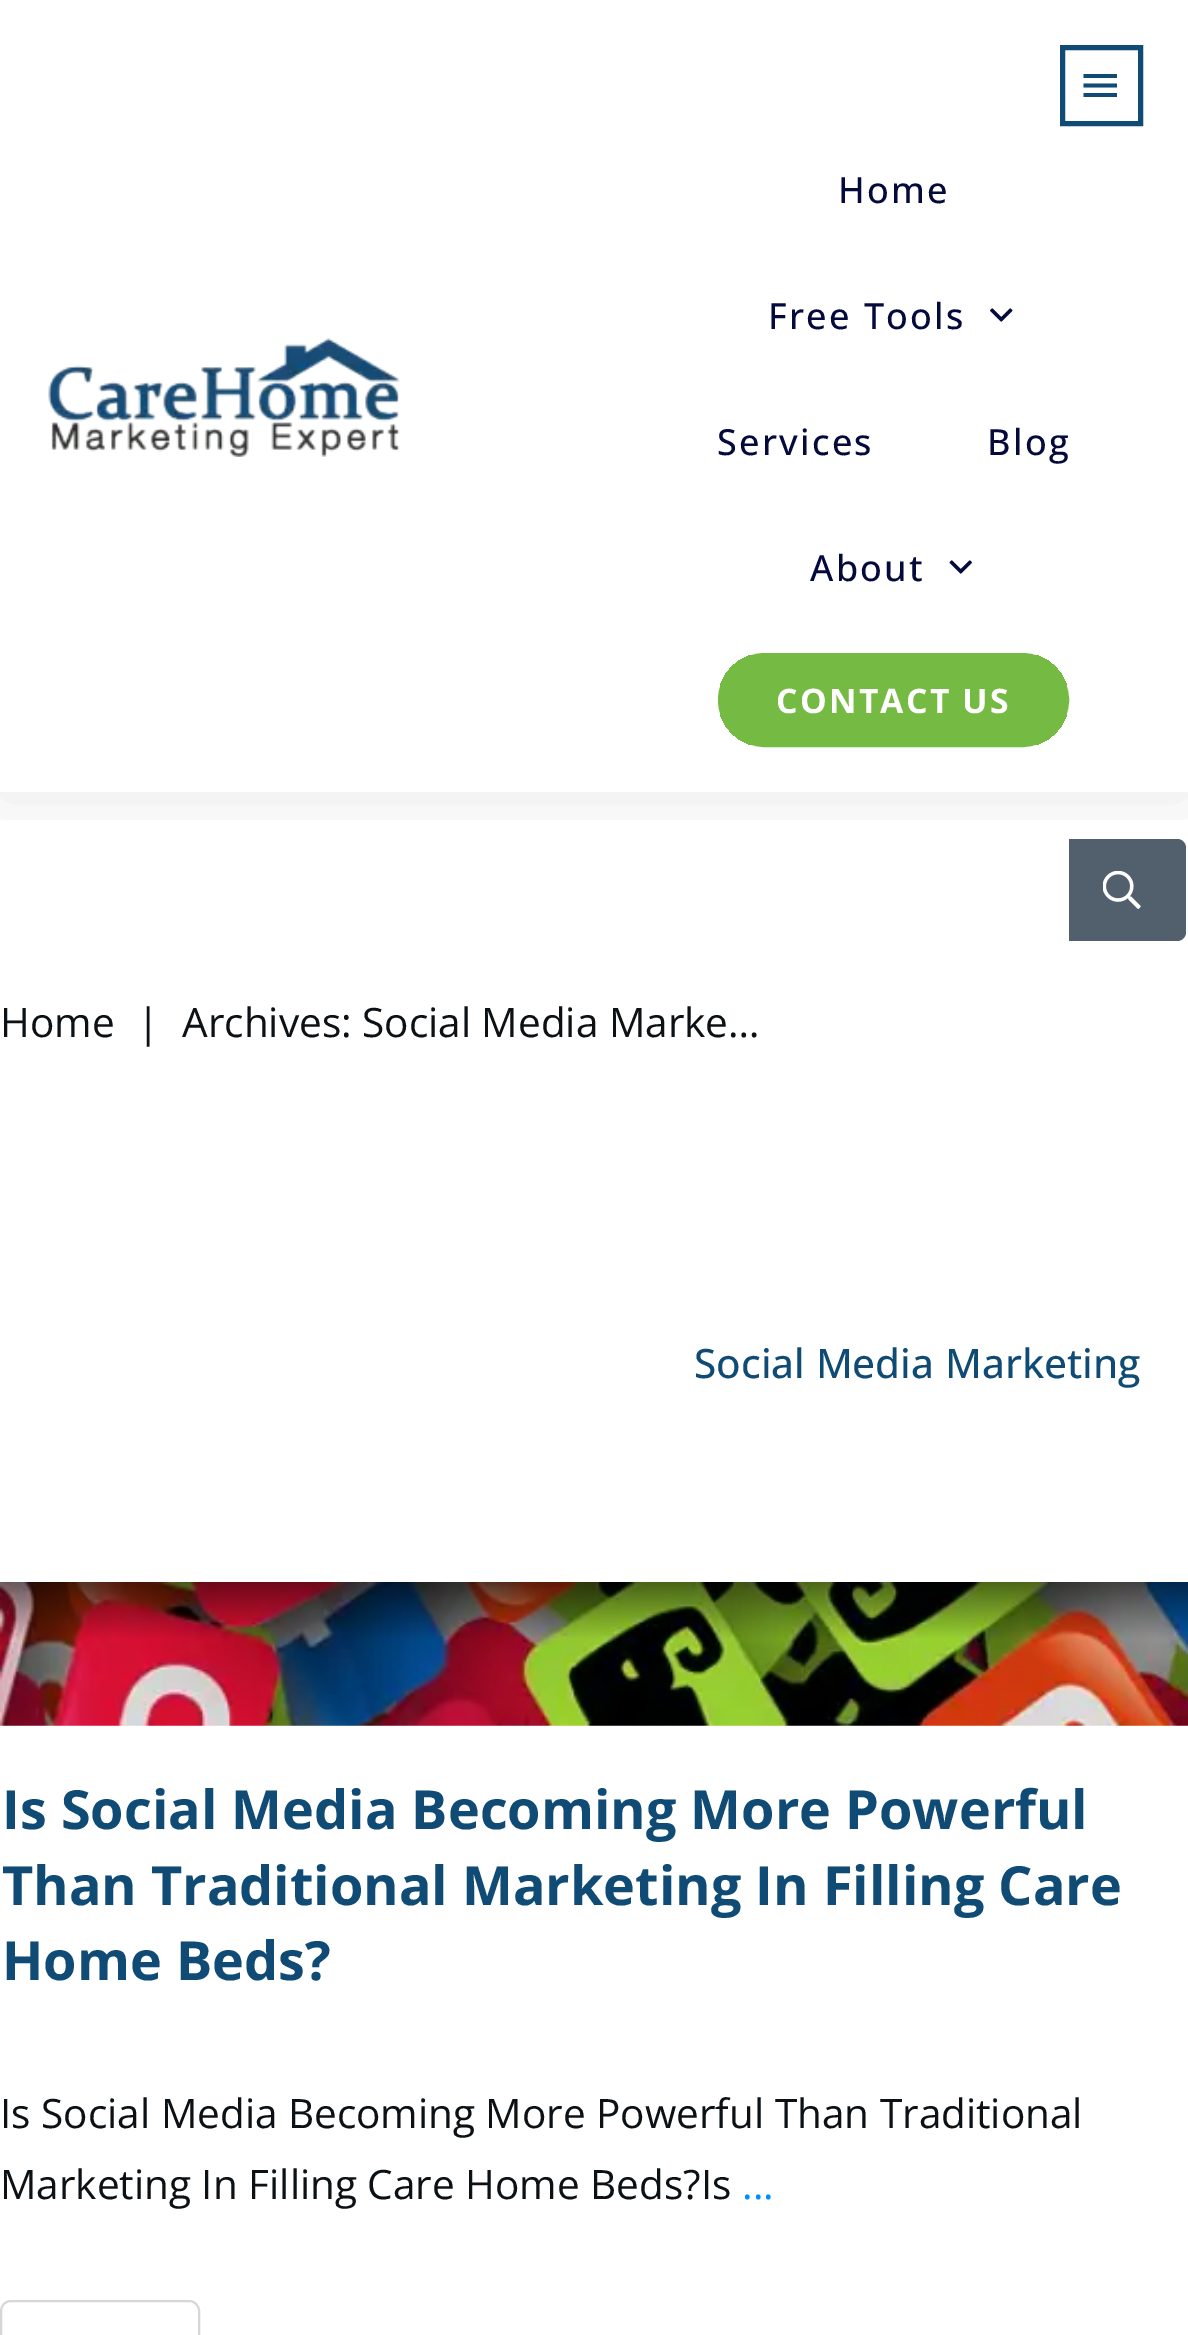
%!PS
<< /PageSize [1188 2335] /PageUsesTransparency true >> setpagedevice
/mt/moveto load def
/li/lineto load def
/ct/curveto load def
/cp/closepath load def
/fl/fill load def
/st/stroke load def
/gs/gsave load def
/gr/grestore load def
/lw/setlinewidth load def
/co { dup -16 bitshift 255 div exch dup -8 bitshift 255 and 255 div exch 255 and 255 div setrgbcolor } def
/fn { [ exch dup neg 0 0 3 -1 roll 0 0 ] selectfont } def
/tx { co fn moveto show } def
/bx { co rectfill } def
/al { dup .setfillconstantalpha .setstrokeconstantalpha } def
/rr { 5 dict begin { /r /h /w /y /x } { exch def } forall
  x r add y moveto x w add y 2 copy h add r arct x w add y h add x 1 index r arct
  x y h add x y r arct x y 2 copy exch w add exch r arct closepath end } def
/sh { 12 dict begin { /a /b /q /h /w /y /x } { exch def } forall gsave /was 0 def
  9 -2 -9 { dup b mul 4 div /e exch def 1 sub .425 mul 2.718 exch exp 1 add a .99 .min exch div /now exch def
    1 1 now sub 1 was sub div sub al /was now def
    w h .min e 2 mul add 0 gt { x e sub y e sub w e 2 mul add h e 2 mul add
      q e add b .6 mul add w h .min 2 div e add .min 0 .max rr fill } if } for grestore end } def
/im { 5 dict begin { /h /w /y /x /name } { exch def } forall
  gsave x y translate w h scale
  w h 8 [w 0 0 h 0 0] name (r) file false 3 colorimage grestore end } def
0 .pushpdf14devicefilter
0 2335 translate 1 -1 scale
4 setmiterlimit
0 0 1188 2335 16#FFFFFF bx
16#52606D co
1069 839 mt 1177 839 li 1182 839 1186 843 1186 848 ct 1186 932 li 1186 937 1182 941 1177 941 ct 1069 941 li cp fl
(media/4.raw) 1103 871 38 38 im
gs
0 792 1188 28 rectclip
16#000000 co
0 5 1188 792 0 34 .08 sh
gr
(media/1.raw) 48 338 352 119 im
16#104B75 co
5 lw
1062.5 47.5 78 76 rectstroke
1083.5 97 mt 1117 97 li 1117 93 li 1083.5 93 li cp 1083.5 87.5 mt 1117 87.5 li 1117 83.5 li 1083.5 83.5 li cp 1083.5 74 mt 1083.5 78 li 1117 78 li 1117 74 li cp fl
(media/2.raw) 990 308 23 14 im
(media/3.raw) 949 560 23 14 im
gs
718 653 351 94 47 rr clip newpath
720 655 347 90 16#75BA43 bx
gr
16#75BA43 co
2 lw
719 654 349 92 46 rr st
(media/5.raw) 0 1582 1188 144 im
16#D7D7D7 co
1 2301 198 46 10 rr st
/OpenSans-Medium 36 fn
16#050A3D co
838 203 mt 2.25 0 (Home) ashow
768 329 mt 2.25 0 (Free Tools) ashow
717 455 mt 2.25 0 (Services) ashow
987 455 mt 2.25 0 (Blog) ashow
810 581 mt 2.25 0 (About) ashow
/OpenSans-Bold 33.75 fn
16#FFFFFF co
776 713 mt 2.25 0 (CONTACT US) ashow
(Home) 0 1037 /OpenSans-Regular 40.5 16#0C1115 tx
(|) 137 1037 /OpenSans-Regular 40.5 16#0C1115 tx
(Archives: Social Media Marke…) 182 1037 /OpenSans-Regular 40.5 16#0C1115 tx
(Social Media Marketing) 694 1378 /OpenSans-Medium 40.5 16#104B75 tx
(Is Social Media Becoming More Powerful) 2 1829 /OpenSans-Bold 54 16#104B75 tx
(Than Traditional Marketing In Filling Care) 2 1905 /OpenSans-Bold 54 16#104B75 tx
(Home Beds?) 2 1980 /OpenSans-Bold 54 16#104B75 tx
(Is Social Media Becoming More Powerful Than Traditional) 0 2128 /OpenSans-Regular 40.5 16#0C1115 tx
(Marketing In Filling Care Home Beds?Is) 0 2199 /OpenSans-Regular 40.5 16#0C1115 tx
(...) 742 2199 /OpenSans-Regular 40.5 16#008FFF tx
.poppdf14devicefilter showpage
